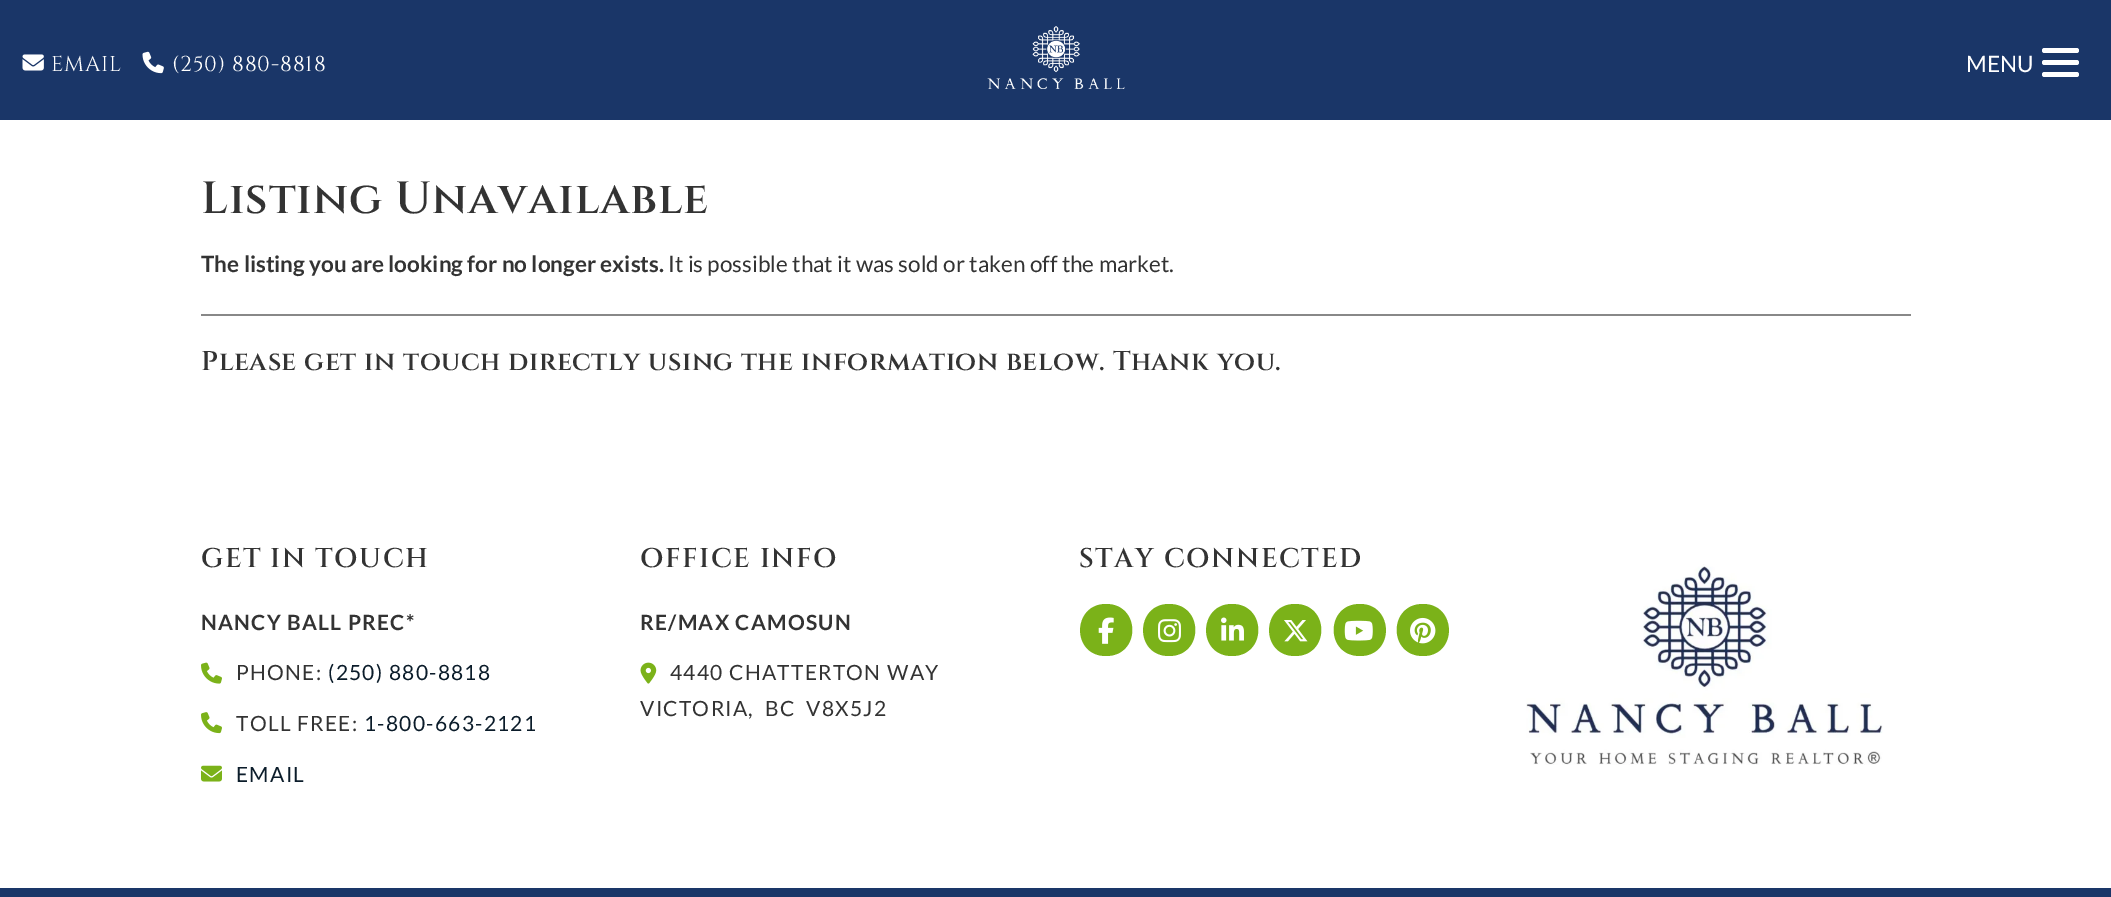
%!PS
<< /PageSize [2111 897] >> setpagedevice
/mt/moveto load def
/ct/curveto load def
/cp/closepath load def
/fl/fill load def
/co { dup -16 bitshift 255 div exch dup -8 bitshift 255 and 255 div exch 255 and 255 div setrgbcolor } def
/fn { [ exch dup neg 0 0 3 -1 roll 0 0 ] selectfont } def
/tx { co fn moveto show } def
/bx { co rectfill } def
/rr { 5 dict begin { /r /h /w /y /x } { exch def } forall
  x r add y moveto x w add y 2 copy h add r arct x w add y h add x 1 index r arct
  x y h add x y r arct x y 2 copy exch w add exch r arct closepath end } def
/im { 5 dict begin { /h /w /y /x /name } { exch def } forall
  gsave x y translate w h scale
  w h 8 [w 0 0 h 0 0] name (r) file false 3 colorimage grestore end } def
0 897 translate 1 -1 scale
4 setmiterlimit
0 0 2111 897 16#FFFFFF bx
0 0 2111 120 16#1A3668 bx
(media/1.raw) 22 54 22 17 im
(media/2.raw) 142 51 22 23 im
(media/3.raw) 987 26 138 63 im
16#FFFFFF co
2042 48 37 5 2.5 rr fl
2042 60 37 5 2.5 rr fl
2042 72 37 5 2.5 rr fl
201 314 1710 2 16#888888 bx
(media/4.raw) 201 662 21 22 im
(media/5.raw) 201 712 21 22 im
(media/6.raw) 201 765 21 17 im
(media/7.raw) 640 662 17 22 im
16#7BB219 co
1106 656 mt 1141 656 1141 604 1106 604 ct 1072 604 1071 656 1106 656 ct cp fl
(media/8.raw) 1098 617 16 27 im
1169 656 mt 1204 656 1204 604 1169 604 ct 1135 604 1134 656 1169 656 ct cp fl
(media/9.raw) 1158 619 23 24 im
1232 656 mt 1267 656 1267 604 1232 604 ct 1198 604 1197 656 1232 656 ct cp fl
(media/10.raw) 1221 617 23 24 im
1295 656 mt 1330 656 1330 604 1295 604 ct 1261 604 1260 656 1295 656 ct cp fl
(media/11.raw) 1284 620 24 22 im
1360 656 mt 1395 656 1394 604 1360 604 ct 1325 604 1325 656 1360 656 ct cp fl
(media/12.raw) 1344 620 29 21 im
1423 656 mt 1458 656 1457 604 1423 604 ct 1388 604 1388 656 1423 656 ct cp fl
(media/13.raw) 1410 617 26 27 im
(media/14.raw) 1526 564 357 201 im
0 888 2111 9 16#1A3668 bx
/Cinzel-Regular 21.5 fn
16#FFFFFF co
51 71 mt .8 0 (EMAIL) ashow
172 71 mt .8 0 (\(250\) 880-8818) ashow
(MENU) 1966 72 /Lato-Regular 22.5 16#FFFFFF tx
/Cinzel-SemiBold 45 fn
16#333333 co
201 213 mt .9 0 (Listing Unavailable) ashow
(The listing you are looking for no longer exists.) 201 272 /Lato-Bold 22.5 16#333333 tx
(It is possible that it was sold or taken off the market.) 668 272 /Lato-Regular 22.5 16#333333 tx
/Cinzel-SemiBold 27 fn
201 370 mt .55 0 (Please get in touch directly using the information below. Thank you.) ashow
201 567 mt 1.6 0 (GET IN TOUCH) ashow
/Lato-Bold 21 fn
201 630 mt 1.25 0 (NANCY BALL PREC*) ashow
/Lato-Regular 21 fn
236 680 mt 1.25 0 (PHONE:) ashow
16#0B1C2A co
328 680 mt 1.25 0 (\(250\) 880-8818) ashow
16#333333 co
236 731 mt 1.25 0 (TOLL FREE:) ashow
16#0B1C2A co
364 731 mt 1.25 0 (1-800-663-2121) ashow
236 782 mt 1.25 0 (EMAIL) ashow
/Cinzel-SemiBold 27 fn
16#333333 co
640 567 mt 1.6 0 (OFFICE INFO) ashow
/Lato-Bold 21 fn
640 630 mt 1.25 0 (RE/MAX CAMOSUN) ashow
/Lato-Regular 21 fn
670 680 mt 1.25 0 (4440 CHATTERTON WAY) ashow
640 716 mt 1.25 0 (VICTORIA,) ashow
765 716 mt 1.25 0 (BC) ashow
806 716 mt 1.25 0 (V8X5J2) ashow
/Cinzel-SemiBold 27 fn
1079 567 mt 1.6 0 (STAY CONNECTED) ashow
showpage
